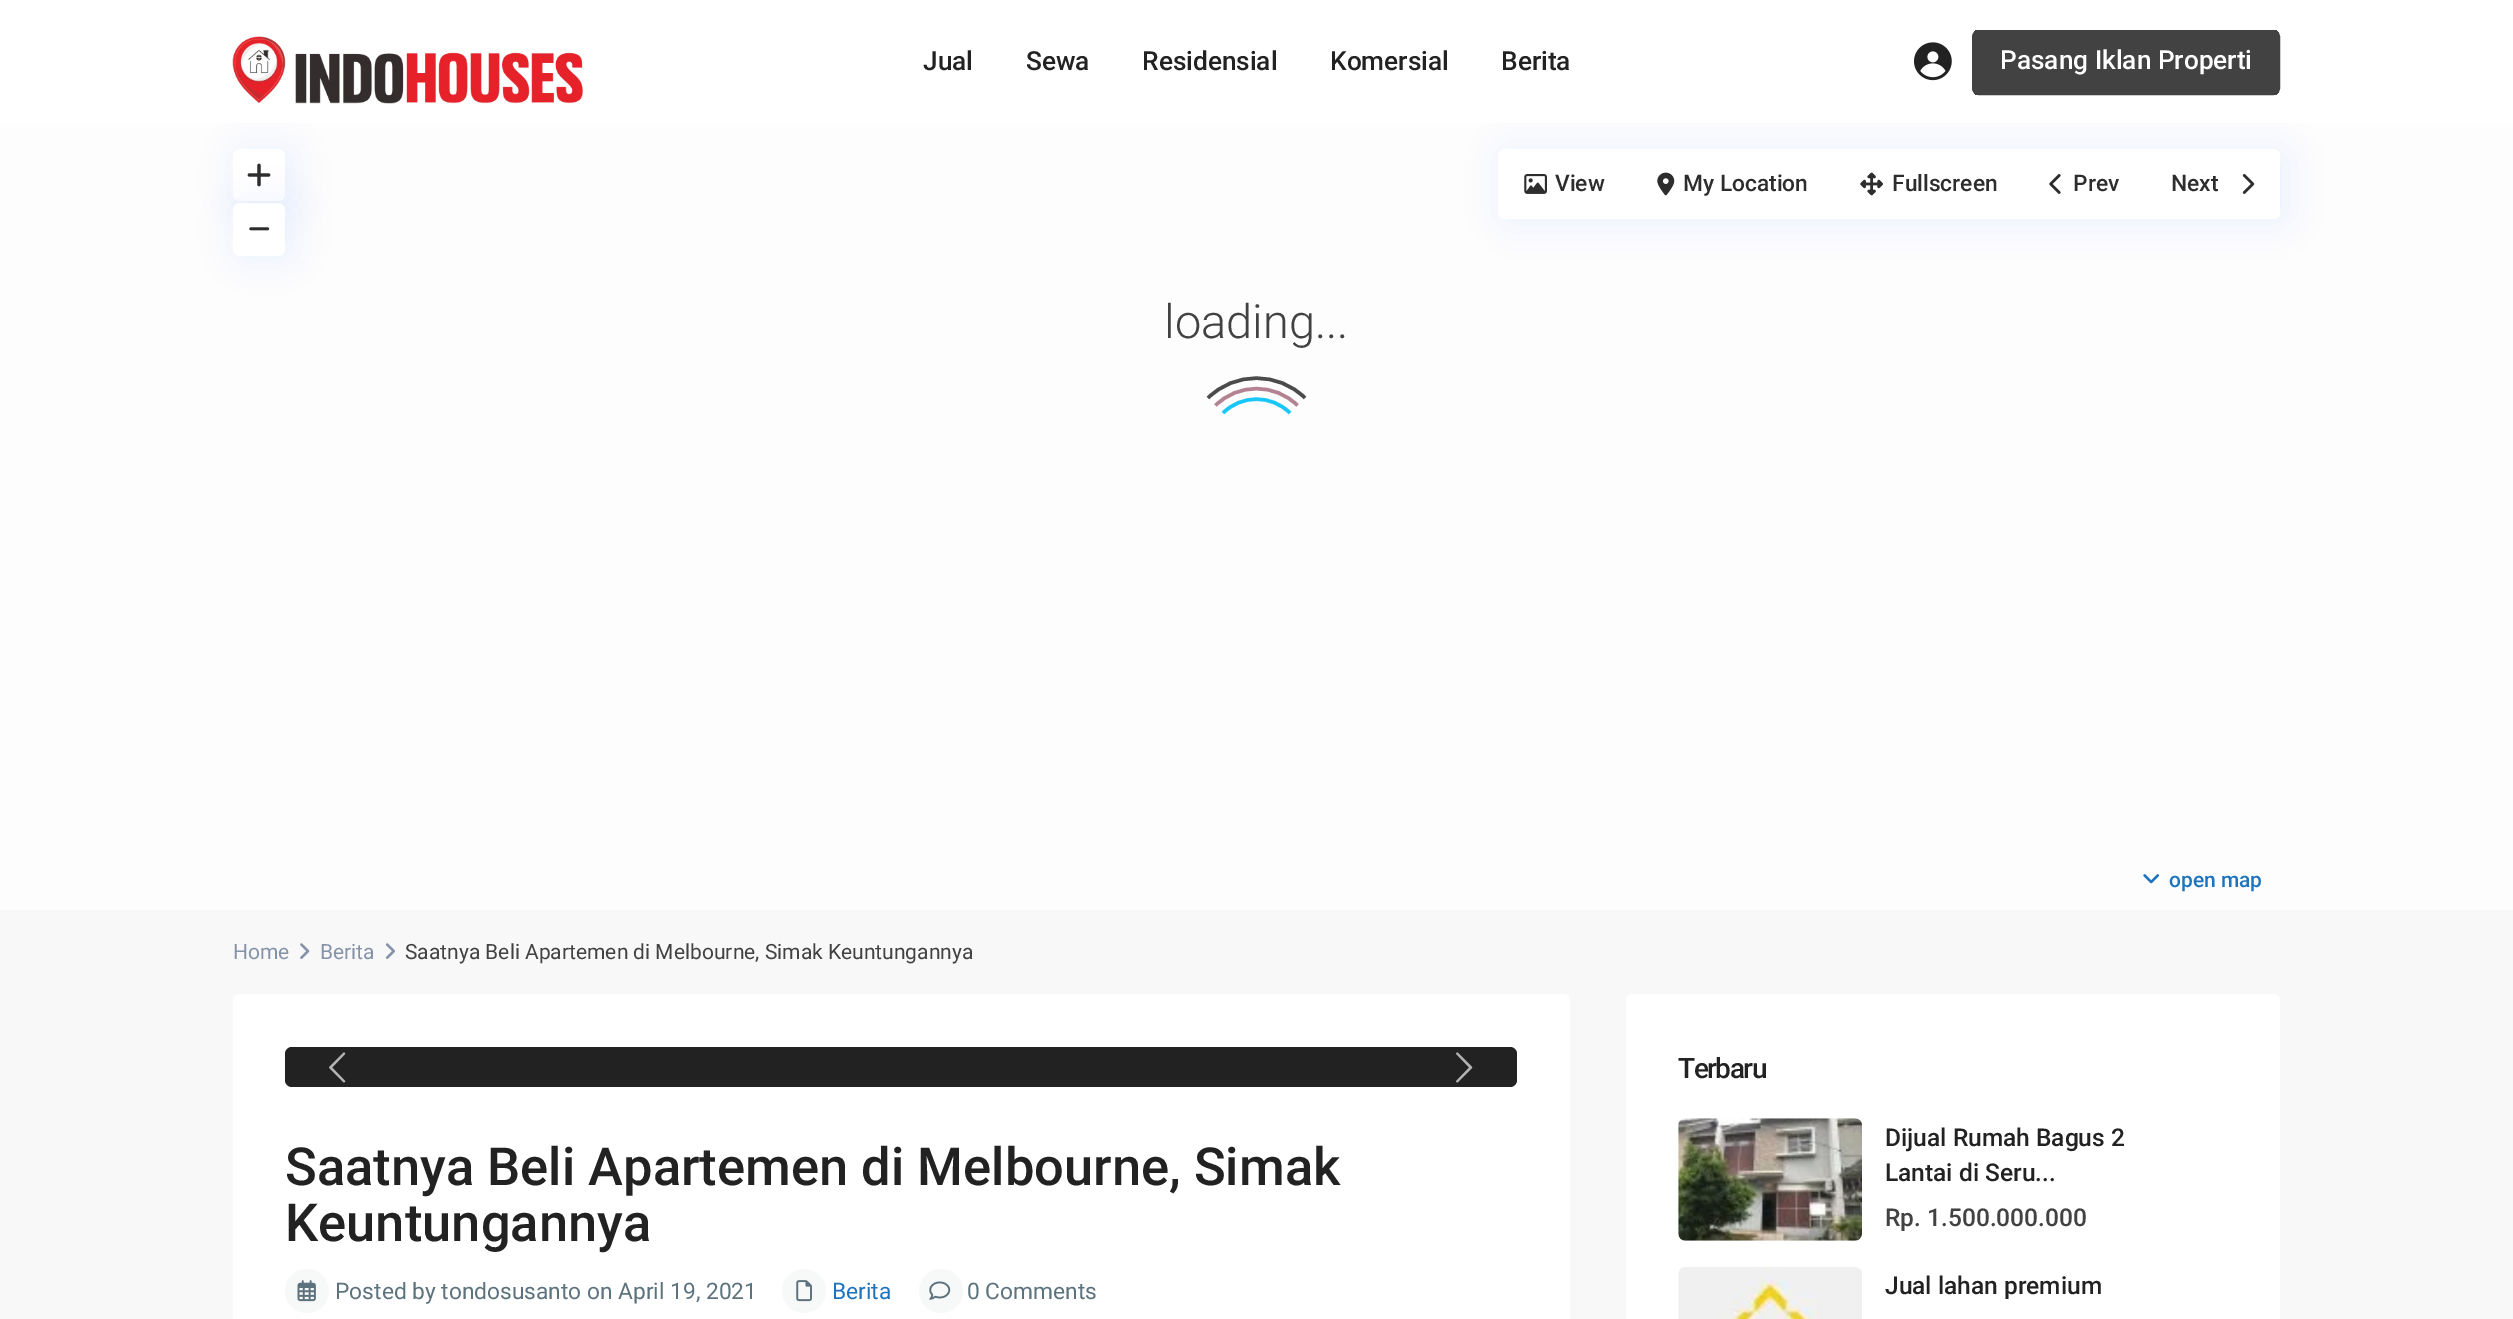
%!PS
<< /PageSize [2513 1319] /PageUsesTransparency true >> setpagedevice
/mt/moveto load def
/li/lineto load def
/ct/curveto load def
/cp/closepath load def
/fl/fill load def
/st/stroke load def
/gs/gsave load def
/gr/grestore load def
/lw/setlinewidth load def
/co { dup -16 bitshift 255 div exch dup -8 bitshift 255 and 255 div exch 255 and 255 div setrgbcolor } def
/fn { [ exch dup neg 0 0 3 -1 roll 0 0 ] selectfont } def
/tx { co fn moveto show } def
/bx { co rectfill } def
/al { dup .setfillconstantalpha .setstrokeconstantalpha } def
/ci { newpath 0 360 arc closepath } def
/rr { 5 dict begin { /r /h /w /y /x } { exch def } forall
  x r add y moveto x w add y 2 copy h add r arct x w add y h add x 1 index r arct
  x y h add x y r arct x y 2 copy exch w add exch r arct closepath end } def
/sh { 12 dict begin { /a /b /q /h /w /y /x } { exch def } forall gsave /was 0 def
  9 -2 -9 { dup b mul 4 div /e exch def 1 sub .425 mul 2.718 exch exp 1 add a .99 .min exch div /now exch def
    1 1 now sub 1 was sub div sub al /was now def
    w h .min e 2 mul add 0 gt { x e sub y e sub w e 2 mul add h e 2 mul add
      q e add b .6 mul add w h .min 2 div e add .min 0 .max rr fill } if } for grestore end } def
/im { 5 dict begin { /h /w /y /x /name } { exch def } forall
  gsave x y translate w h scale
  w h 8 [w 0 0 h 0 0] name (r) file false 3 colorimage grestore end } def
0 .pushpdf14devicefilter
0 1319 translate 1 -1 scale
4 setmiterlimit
0 0 2513 1319 16#F8F8F8 bx
0 123 2513 787 16#FDFDFD bx
16#006EE1 co
238 151 53 52 7 17.5 .08 sh
1503 151 783 70 7 17.5 .08 sh
0 0 2513 123 16#FFFFFF bx
(media/1.raw) 232 36 351 68 im
(media/2.raw) 1914 42 38 39 im
gs
1972 30 308 65 7 rr clip newpath
1974 30 305 65 16#424242 bx
gr
16#424242 co
2 lw
1973 31 306 63 6 rr st
16#4B4B4B co
3.5 lw
1208 398 mt 1234.5 371.5 1278.5 371.5 1305 398 ct st
16#B48392 co
1215.5 405.5 mt 1238 383 1275 383 1297.5 405.5 ct st
16#19C6F8 co
1223 413 mt 1241.5 394.5 1271.5 394.5 1290 413 ct st
16#FFFFFF co
233 149 52 52 7 rr fl
(media/3.raw) 247 163 24 24 im
gs
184 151 mt 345 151 li 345 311 li 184 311 li cp 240 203 mt 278 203 li 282 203 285 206 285 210 ct 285 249 li 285 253 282 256 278 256 ct 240 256 li 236 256 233 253 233 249 ct 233 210 li 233 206 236 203 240 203 ct cp eoclip newpath
16#006EE1 co
238 205 53 52 7 17.5 .08 sh
gr
0.95 al
233 203 52 53 7 rr fl
1 al
(media/4.raw) 249 227 21 4 im
1498 149 782 70 7 rr fl
(media/5.raw) 1524 174 23 20 im
(media/6.raw) 1657 172 18 24 im
(media/7.raw) 1860 172 23 24 im
(media/8.raw) 2049 174 12 20 im
(media/9.raw) 2242 174 13 20 im
(media/10.raw) 2143 874 16 10 im
(media/11.raw) 300 943 10 16 im
(media/12.raw) 385 943 10 16 im
233 994 1337 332 7 rr fl
16#222222 co
285 1047 1232 40 7 rr fl
(media/13.raw) 329 1052 17 31 im
(media/14.raw) 1456 1052 17 31 im
16#F7F8F8 co
307 1291 22 ci fl
(media/15.raw) 297 1280 19 22 im
804 1291 22 ci fl
(media/16.raw) 796 1280 16 22 im
941 1291 22 ci fl
(media/17.raw) 929 1281 22 19 im
16#FFFFFF co
1626 994 654 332 7 rr fl
(media/18.raw) 1678 1118 184 123 im
(media/19.raw) 1678 1267 184 52 im
(Jual) 923 70 /Roboto-Medium 26.25 16#222222 tx
(Sewa) 1026 70 /Roboto-Medium 26.25 16#222222 tx
(Residensial) 1142 70 /Roboto-Medium 26.25 16#222222 tx
(Komersial) 1330 70 /Roboto-Medium 26.25 16#222222 tx
(Berita) 1501 70 /Roboto-Medium 26.25 16#222222 tx
(Pasang Iklan Properti) 2000 69 /Roboto-Medium 26.25 16#FFFFFF tx
(loading...) 1164 338 /Roboto-Light 47 16#424242 tx
(View) 1555 191 /Roboto-Medium 22.75 16#2D2D2D tx
(My Location) 1683 191 /Roboto-Medium 22.75 16#2D2D2D tx
(Fullscreen) 1892 191 /Roboto-Medium 22.75 16#2D2D2D tx
(Prev) 2073 191 /Roboto-Medium 22.75 16#2D2D2D tx
(Next) 2171 191 /Roboto-Medium 22.75 16#2D2D2D tx
(open map) 2169 887 /Roboto-Medium 21 16#1E73BE tx
(Home) 233 959 /Roboto-Regular 21 16#8593A9 tx
(Berita) 320 959 /Roboto-Regular 21 16#8593A9 tx
(Saatnya Beli Apartemen di Melbourne, Simak Keuntungannya) 405 959 /Roboto-Regular 21 16#424242 tx
(Saatnya Beli Apartemen di Melbourne, Simak) 285 1185 /Roboto-Medium 52.5 16#222222 tx
(Keuntungannya) 285 1241 /Roboto-Medium 52.5 16#222222 tx
(Posted by tondosusanto on April 19, 2021) 335 1299 /Roboto-Regular 22.75 16#5C727D tx
(Berita) 832 1299 /Roboto-Regular 22.75 16#1E73BE tx
(0 Comments) 967 1299 /Roboto-Regular 22.75 16#5C727D tx
/Roboto-Medium 28 fn
16#222222 co
1678 1078 mt -1.5 0 (Terbaru) ashow
(Dijual Rumah Bagus 2) 1885 1146 /Roboto-Medium 24.5 16#222222 tx
(Lantai di Seru...) 1885 1181 /Roboto-Medium 24.5 16#222222 tx
(Rp. 1.500.000.000) 1885 1226 /Roboto-Medium 24.5 16#424242 tx
(Jual lahan premium) 1885 1294 /Roboto-Medium 24.5 16#222222 tx
.poppdf14devicefilter showpage
